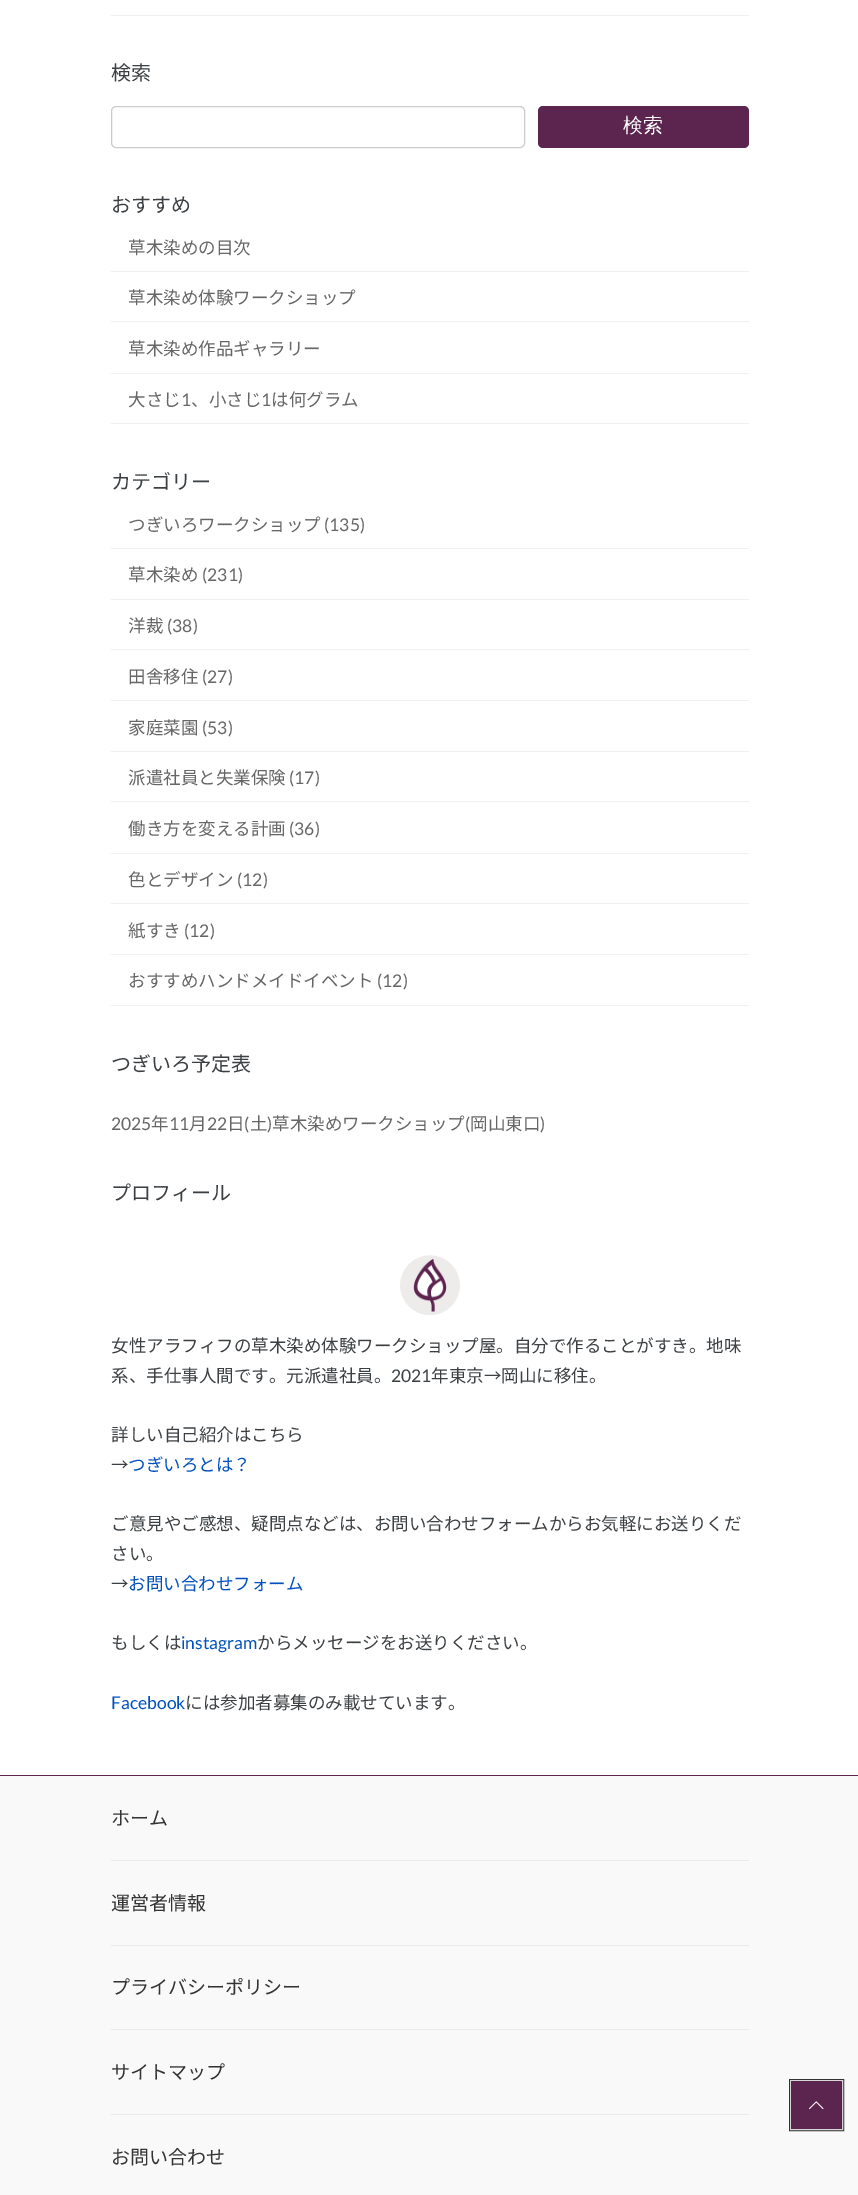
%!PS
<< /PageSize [858 2195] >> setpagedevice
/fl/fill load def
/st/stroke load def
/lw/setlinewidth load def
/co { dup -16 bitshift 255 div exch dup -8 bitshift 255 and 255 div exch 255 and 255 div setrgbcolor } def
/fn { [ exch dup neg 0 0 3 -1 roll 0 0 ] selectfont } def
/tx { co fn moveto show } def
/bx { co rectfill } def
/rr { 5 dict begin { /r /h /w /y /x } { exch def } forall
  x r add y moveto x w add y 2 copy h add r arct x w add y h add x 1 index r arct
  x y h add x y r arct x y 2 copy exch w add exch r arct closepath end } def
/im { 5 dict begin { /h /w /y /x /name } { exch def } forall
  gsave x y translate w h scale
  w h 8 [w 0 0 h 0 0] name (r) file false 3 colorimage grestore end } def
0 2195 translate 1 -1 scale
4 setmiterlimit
0 0 858 2195 16#FFFFFF bx
111 15 638 1 16#F0F0F0 bx
16#CCCCCC co
111.5 106.5 413 41 4.5 rr st
16#5C254F co
538 106 211 42 5 rr fl
111 271 638 1 16#F0F0F0 bx
111 321 638 1 16#F0F0F0 bx
111 373 638 1 16#F0F0F0 bx
111 423 638 1 16#F0F0F0 bx
111 548 638 1 16#F0F0F0 bx
111 599 638 1 16#F0F0F0 bx
111 649 638 1 16#F0F0F0 bx
111 700 638 1 16#F0F0F0 bx
111 751 638 1 16#F0F0F0 bx
111 801 638 1 16#F0F0F0 bx
111 853 638 1 16#F0F0F0 bx
111 903 638 1 16#F0F0F0 bx
111 954 638 1 16#F0F0F0 bx
111 1005 638 1 16#F0F0F0 bx
(media/1.raw) 400 1255 60 61 im
0 1776 858 419 16#F9F9F9 bx
0 1775 858 1 16#5C254F bx
111 1860 638 1 16#EAEAEA bx
111 1945 638 1 16#EAEAEA bx
111 2029 638 1 16#EAEAEA bx
111 2114 638 1 16#EAEAEA bx
16#323232 co
3 lw
790.5 2080.5 52 49 rectstroke
16#D6D6D6 co
1 lw
790.5 2080.5 52 49 rectstroke
791 2081 50 48 16#5C254F bx
(media/2.raw) 809 2101 15 9 im
(検索) 111 80 /NotoSansJP-Regular 20 16#3C4043 tx
(検索) 623 132 /WenQuanYiZenHei-Medium 20 16#FFFFFF tx
(おすすめ) 111 212 /NotoSansJP-Regular 20 16#3C4043 tx
(草木染めの目次) 128 254 /NotoSansJP-Regular 17.5 16#666666 tx
(草木染め体験ワークショップ) 128 304 /NotoSansJP-Regular 17.5 16#666666 tx
(草木染め作品ギャラリー) 128 355 /NotoSansJP-Regular 17.5 16#666666 tx
(大さじ) 128 406 /NotoSansJP-Regular 17.5 16#666666 tx
(1) 181 406 /Lato-Regular 17.5 16#666666 tx
(、小さじ) 191 406 /NotoSansJP-Regular 17.5 16#666666 tx
(1) 261 406 /Lato-Regular 17.5 16#666666 tx
(は何グラム) 271 406 /NotoSansJP-Regular 17.5 16#666666 tx
(カテゴリー) 111 489 /NotoSansJP-Regular 20 16#3C4043 tx
(つぎいろワークショップ) 128 531 /NotoSansJP-Regular 17.5 16#666666 tx
(\(135\)) 324 531 /Lato-Regular 17.5 16#666666 tx
(草木染め) 128 581 /NotoSansJP-Regular 17.5 16#666666 tx
(\(231\)) 202 581 /Lato-Regular 17.5 16#666666 tx
(洋裁) 128 632 /NotoSansJP-Regular 17.5 16#666666 tx
(\(38\)) 167 632 /Lato-Regular 17.5 16#666666 tx
(田舎移住) 128 683 /NotoSansJP-Regular 17.5 16#666666 tx
(\(27\)) 202 683 /Lato-Regular 17.5 16#666666 tx
(家庭菜園) 128 734 /NotoSansJP-Regular 17.5 16#666666 tx
(\(53\)) 202 734 /Lato-Regular 17.5 16#666666 tx
(派遣社員と失業保険) 128 784 /NotoSansJP-Regular 17.5 16#666666 tx
(\(17\)) 289 784 /Lato-Regular 17.5 16#666666 tx
(働き方を変える計画) 128 835 /NotoSansJP-Regular 17.5 16#666666 tx
(\(36\)) 289 835 /Lato-Regular 17.5 16#666666 tx
(色とデザイン) 128 886 /NotoSansJP-Regular 17.5 16#666666 tx
(\(12\)) 237 886 /Lato-Regular 17.5 16#666666 tx
(紙すき) 128 937 /NotoSansJP-Regular 17.5 16#666666 tx
(\(12\)) 184 937 /Lato-Regular 17.5 16#666666 tx
(おすすめハンドメイドイベント) 128 987 /NotoSansJP-Regular 17.5 16#666666 tx
(\(12\)) 377 987 /Lato-Regular 17.5 16#666666 tx
(つぎいろ予定表) 111 1071 /NotoSansJP-Regular 20 16#3C4043 tx
(2025) 111 1130 /Lato-Regular 17.5 16#666666 tx
(年) 151 1130 /NotoSansJP-Regular 17.5 16#666666 tx
(11) 169 1130 /Lato-Regular 17.5 16#666666 tx
(月) 189 1130 /NotoSansJP-Regular 17.5 16#666666 tx
(22) 207 1130 /Lato-Regular 17.5 16#666666 tx
(日) 227 1130 /NotoSansJP-Regular 17.5 16#666666 tx
(\() 244 1130 /Lato-Regular 17.5 16#666666 tx
(土) 250 1130 /NotoSansJP-Regular 17.5 16#666666 tx
(\)) 267 1130 /Lato-Regular 17.5 16#666666 tx
(草木染めワークショップ) 272 1130 /NotoSansJP-Regular 17.5 16#666666 tx
(\() 465 1130 /Lato-Regular 17.5 16#666666 tx
(岡山東口) 470 1130 /NotoSansJP-Regular 17.5 16#666666 tx
(\)) 540 1130 /Lato-Regular 17.5 16#666666 tx
(プロフィール) 111 1200 /NotoSansJP-Regular 20 16#3C4043 tx
(女性アラフィフの草木染め体験ワークショップ屋。自分で作ることがすき。地味) 111 1352 /NotoSansJP-Regular 17.5 16#3C4043 tx
(系、手仕事人間です。元派遣社員。) 111 1382 /NotoSansJP-Regular 17.5 16#3C4043 tx
(2021) 391 1382 /Lato-Regular 17.5 16#3C4043 tx
(年東京→岡山に移住。) 431 1382 /NotoSansJP-Regular 17.5 16#3C4043 tx
(詳しい自己紹介はこちら) 111 1441 /NotoSansJP-Regular 17.5 16#3C4043 tx
(→) 111 1471 /NotoSansJP-Regular 17.5 16#3C4043 tx
(つぎいろとは？) 128 1471 /NotoSansJP-Regular 17.5 16#0050BE tx
(ご意見やご感想、疑問点などは、お問い合わせフォームからお気軽にお送りくだ) 111 1530 /NotoSansJP-Regular 17.5 16#3C4043 tx
(さい。) 111 1560 /NotoSansJP-Regular 17.5 16#3C4043 tx
(→) 111 1590 /NotoSansJP-Regular 17.5 16#3C4043 tx
(お問い合わせフォーム) 128 1590 /NotoSansJP-Regular 17.5 16#0050BE tx
(もしくは) 111 1649 /NotoSansJP-Regular 17.5 16#3C4043 tx
(instagram) 181 1649 /Lato-Regular 17.5 16#0050BE tx
(からメッセージをお送りください。) 257 1649 /NotoSansJP-Regular 17.5 16#3C4043 tx
(Facebook) 111 1709 /Lato-Regular 17.5 16#0050BE tx
(には参加者募集のみ載せています。) 185 1709 /NotoSansJP-Regular 17.5 16#3C4043 tx
(ホーム) 111 1825 /NotoSansJP-Regular 19 16#333333 tx
(運営者情報) 111 1910 /NotoSansJP-Regular 19 16#333333 tx
(プライバシーポリシー) 111 1994 /NotoSansJP-Regular 19 16#333333 tx
(サイトマップ) 111 2079 /NotoSansJP-Regular 19 16#333333 tx
(お問い合わせ) 111 2164 /NotoSansJP-Regular 19 16#333333 tx
showpage
